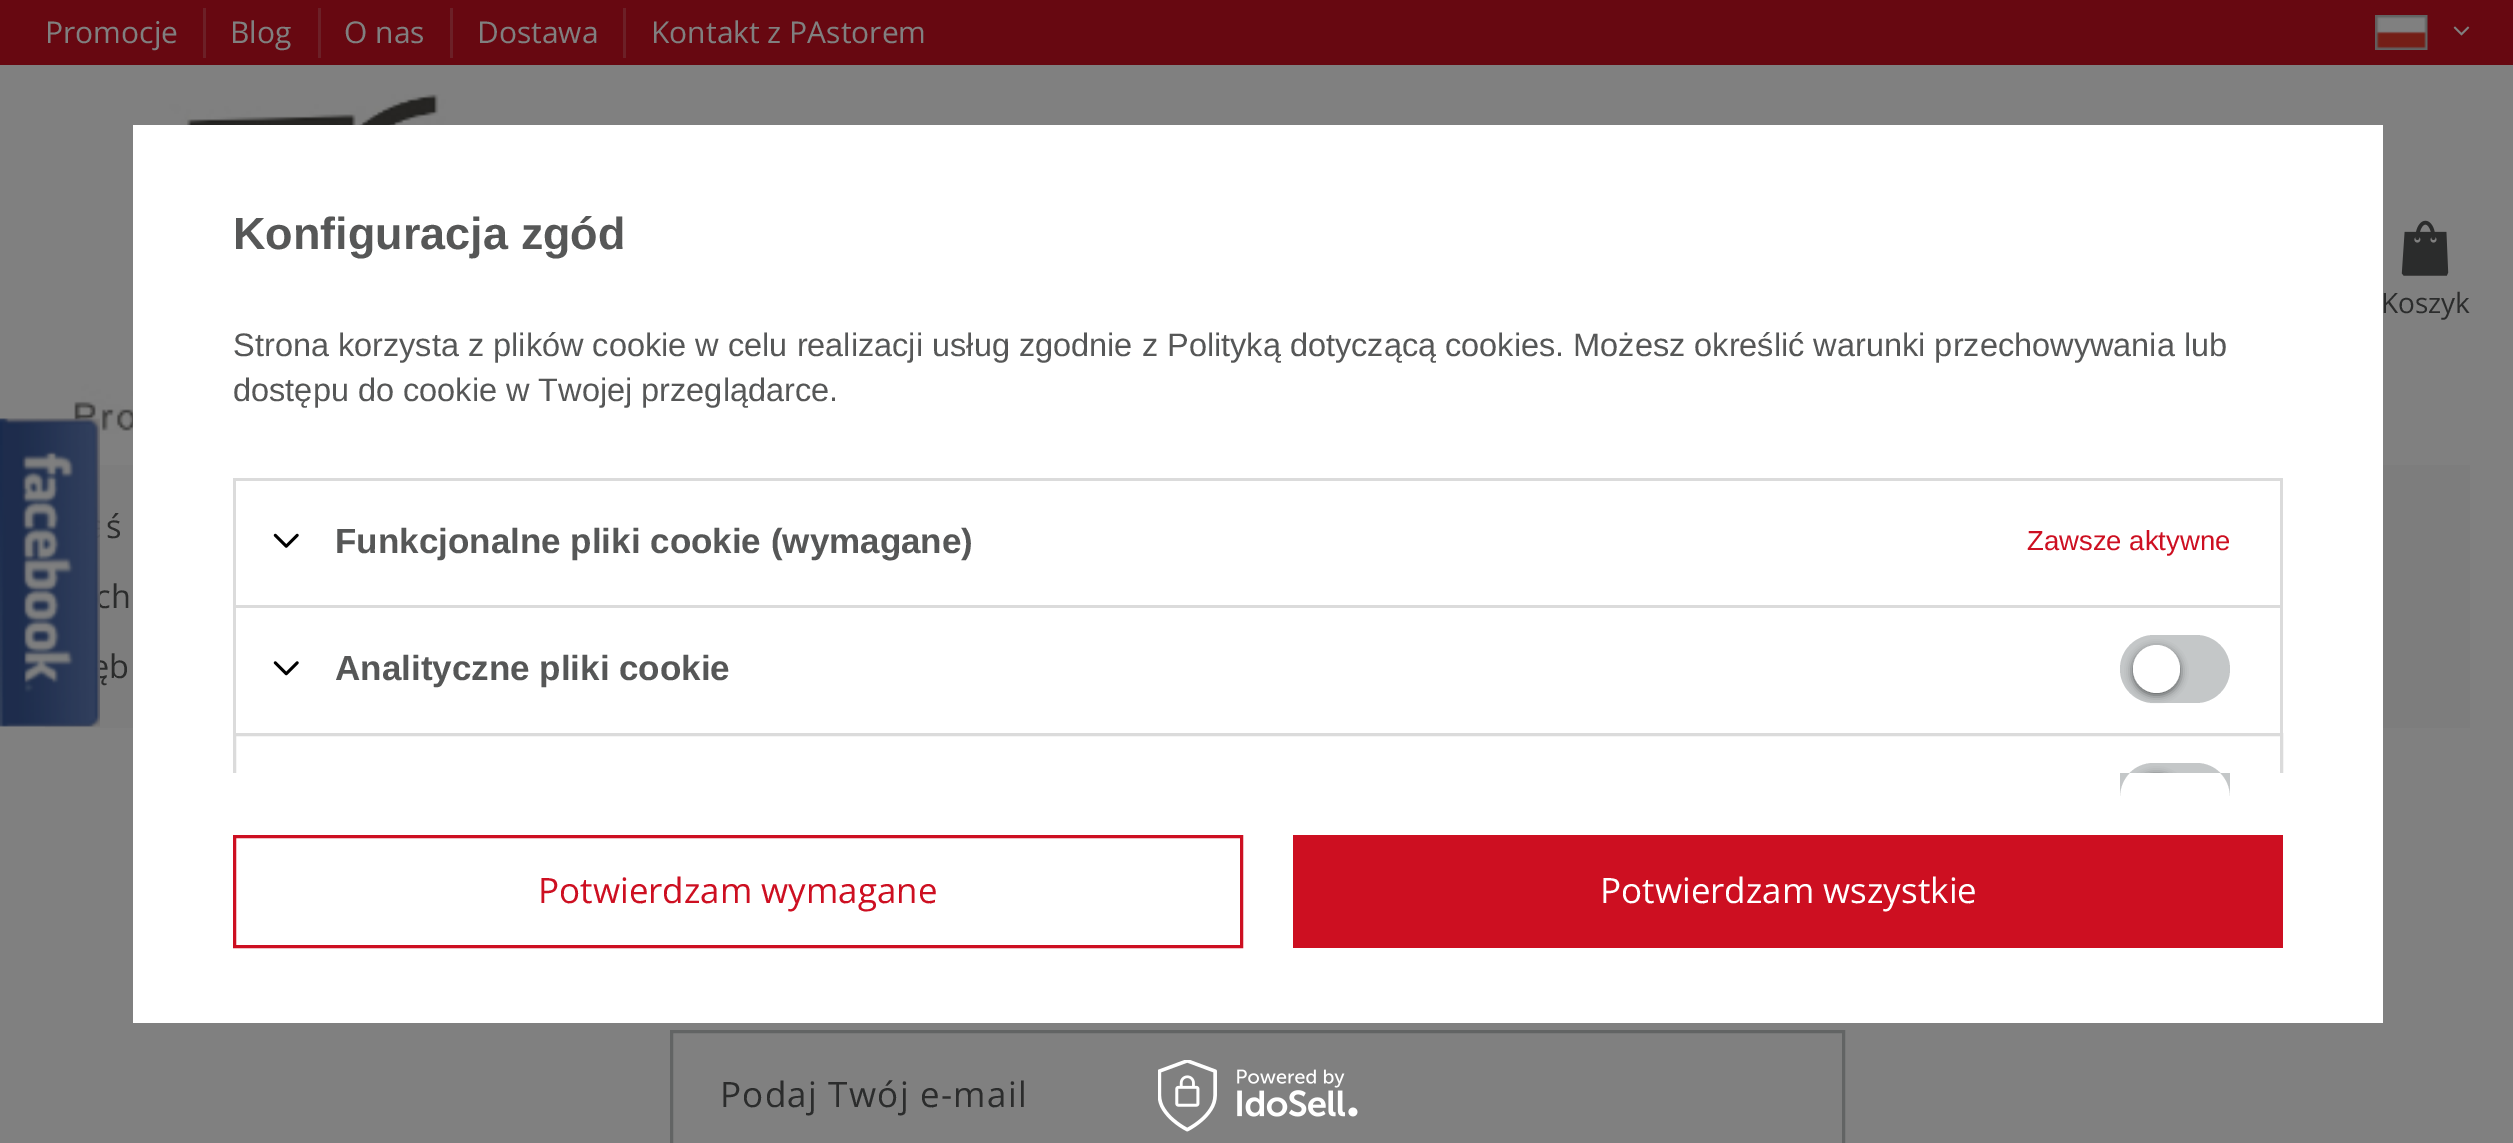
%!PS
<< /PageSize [2513 1143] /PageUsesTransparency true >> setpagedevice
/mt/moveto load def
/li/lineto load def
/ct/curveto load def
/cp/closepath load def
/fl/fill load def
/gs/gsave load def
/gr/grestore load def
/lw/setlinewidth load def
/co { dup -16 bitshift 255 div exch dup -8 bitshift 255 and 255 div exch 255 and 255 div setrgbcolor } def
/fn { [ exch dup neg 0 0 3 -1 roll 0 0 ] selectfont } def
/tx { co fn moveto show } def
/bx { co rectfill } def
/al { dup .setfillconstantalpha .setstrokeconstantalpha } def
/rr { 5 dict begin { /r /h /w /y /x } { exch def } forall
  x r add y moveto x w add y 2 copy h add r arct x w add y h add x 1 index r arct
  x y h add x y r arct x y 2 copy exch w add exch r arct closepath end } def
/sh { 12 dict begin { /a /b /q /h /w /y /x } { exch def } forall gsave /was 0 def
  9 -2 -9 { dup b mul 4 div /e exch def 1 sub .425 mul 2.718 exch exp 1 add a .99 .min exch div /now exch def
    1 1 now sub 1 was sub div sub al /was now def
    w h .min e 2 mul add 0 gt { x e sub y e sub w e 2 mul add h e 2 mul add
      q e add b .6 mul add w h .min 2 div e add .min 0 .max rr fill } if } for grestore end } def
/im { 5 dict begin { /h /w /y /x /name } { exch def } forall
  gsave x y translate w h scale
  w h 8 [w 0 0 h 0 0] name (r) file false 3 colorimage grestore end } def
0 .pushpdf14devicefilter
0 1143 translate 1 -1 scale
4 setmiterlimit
0 0 2513 1143 16#808080 bx
0 0 2513 65 16#670811 bx
203 8 3 50 16#6C2027 bx
318 8 3 50 16#6C2027 bx
450 8 3 50 16#6C2027 bx
623 8 3 50 16#6C2027 bx
(media/1.raw) 2375 15 53 35 im
(media/2.raw) 2453 26 17 10 im
(media/3.raw) 74 94 490 340 im
(media/4.raw) 2401 220 48 56 im
45 465 2425 263 16#7D7D7D bx
16#626464 co
3 lw
671.5 1031.5 1172 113 rectstroke
133 125 2250 898 16#FFFFFF bx
233 478 2050 3 16#DBDBDB bx
2280 478 3 127 16#DBDBDB bx
233 478 3 127 16#DBDBDB bx
(media/6.raw) 273 533 26 15 im
233 605 2050 3 16#DBDBDB bx
2280 605 3 128 16#DBDBDB bx
233 605 3 128 16#DBDBDB bx
(media/7.raw) 273 661 26 15 im
16#C4C7C8 co
2120 635 110 68 34 rr fl
16#000000 co
2133 648 47 47 23.5 4 .56 sh
16#FFFFFF co
2133 645 47 48 23.5 rr fl
16#CD0F21 co
234.5 836.5 1007 110 rectstroke
1293 835 990 113 16#CD0F21 bx
gs
208 200 2100 573 rectclip
16#DBDBDB co
234.5 734.5 2047 127 rectstroke
gr
16#C4C7C8 co
2153.5 763 mt 2196.5 763 li 2215 763 2230 778 2230 796.5 ct 2230 773 li 2120 773 li 2120 796.5 li 2120 778 2135 763 2153.5 763 ct cp fl
gs
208 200 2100 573 rectclip
16#000000 co
2133 775 47 48 23.5 4 .56 sh
gr
(media/8.raw) 1158 1060 200 72 im
(Promocje) 45 43 /OpenSans-Regular 30 16#808080 tx
(Blog) 230 43 /OpenSans-Regular 30 16#808080 tx
(O nas) 344 43 /OpenSans-Regular 30 16#808080 tx
(Dostawa) 477 43 /OpenSans-Regular 30 16#808080 tx
(Kontakt z PAstorem) 651 43 /OpenSans-Regular 30 16#808080 tx
(Koszyk) 2381 313 /OpenSans-Regular 28 16#2B2C2C tx
(ś) 106 538 /OpenSans-Regular 32.5 16#2B2C2C tx
(ch) 95 608 /OpenSans-Regular 32.5 16#2B2C2C tx
(ęb) 91 678 /OpenSans-Regular 32.5 16#2B2C2C tx
/OpenSans-Regular 35 fn
720 1107 mt 1.25 0 (Podaj Twój e-mail) ashow
(media/5.raw) 0 418 100 309 im
(Konfiguracja zgód) 233 249 /LiberationSans-Bold 45 16#565757 tx
(Strona korzysta z plików cookie w celu realizacji usług zgodnie z Polityką dotyczącą cookies. Możesz określić warunki przechowywania lub) 233 356 /LiberationSans-Regular 32.5 16#565757 tx
(dostępu do cookie w Twojej przeglądarce.) 233 401 /LiberationSans-Regular 32.5 16#565757 tx
(Funkcjonalne pliki cookie \(wymagane\)) 335 553 /LiberationSans-Bold 35 16#565757 tx
(Zawsze aktywne) 2027 550 /LiberationSans-Regular 27.5 16#CD0F21 tx
(Analityczne pliki cookie) 335 680 /LiberationSans-Bold 35 16#565757 tx
(Potwierdzam wymagane) 538 903 /OpenSans-Regular 35 16#CD0F21 tx
(Potwierdzam wszystkie) 1600 903 /OpenSans-Regular 35 16#FFFFFF tx
.poppdf14devicefilter showpage
